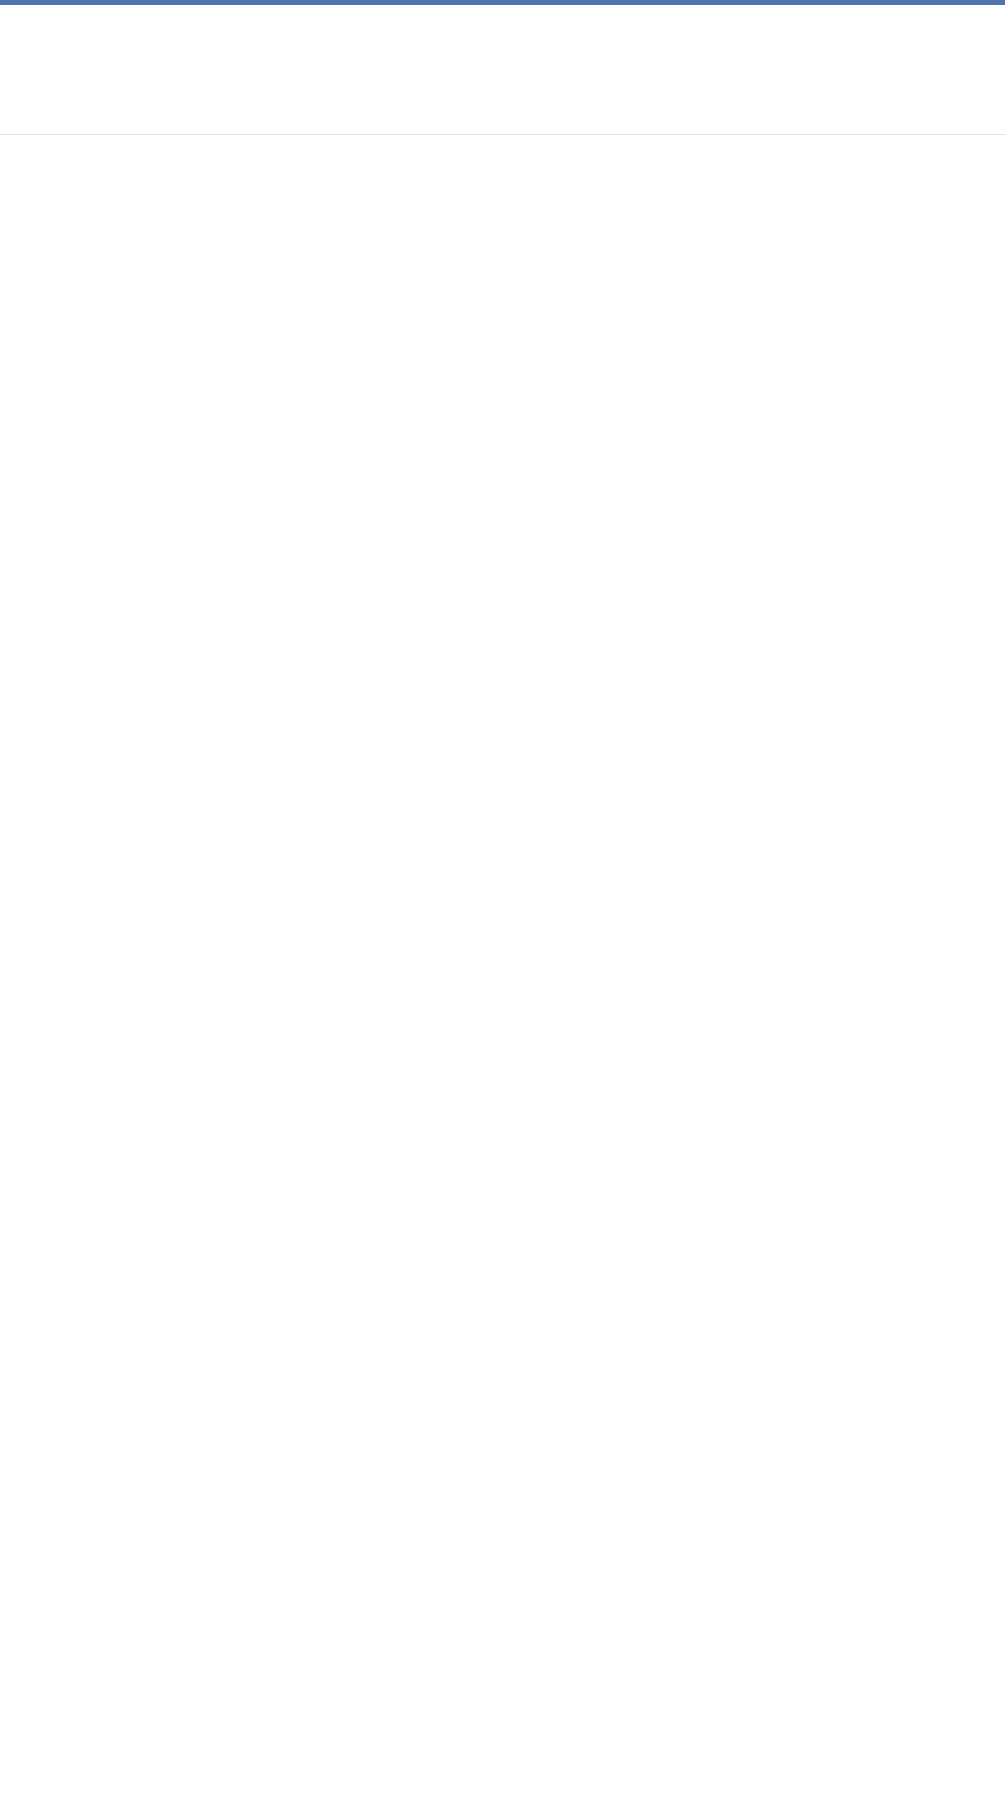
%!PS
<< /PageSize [1005 1809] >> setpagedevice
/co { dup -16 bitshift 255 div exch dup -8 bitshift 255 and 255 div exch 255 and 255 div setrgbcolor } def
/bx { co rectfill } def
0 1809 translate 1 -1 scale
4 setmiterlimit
0 0 1005 1809 16#FFFFFF bx
0 0 1005 5 16#4F73AF bx
0 134 1005 1 16#E5E5E6 bx
showpage
